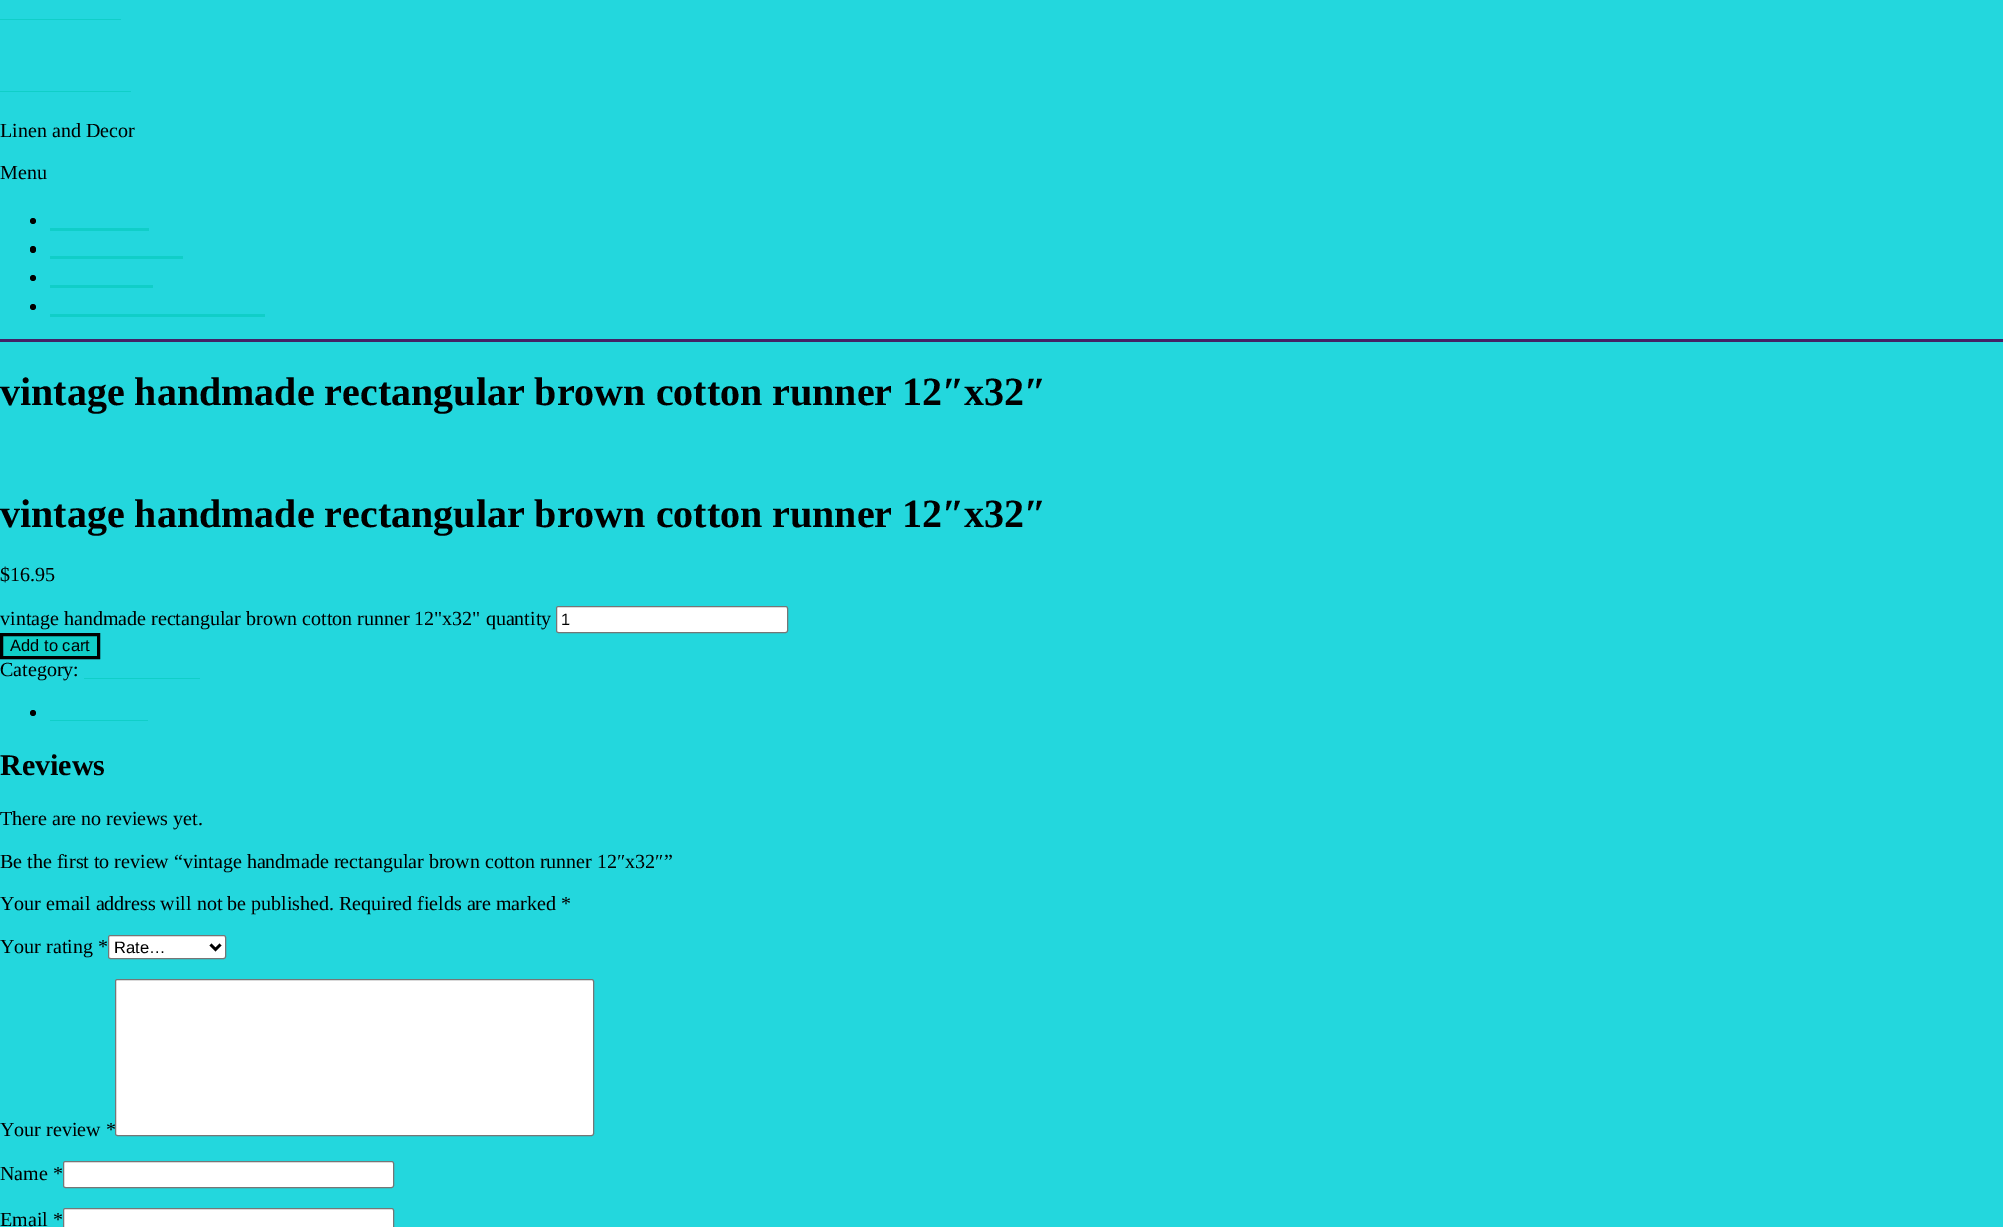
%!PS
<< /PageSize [2003 1227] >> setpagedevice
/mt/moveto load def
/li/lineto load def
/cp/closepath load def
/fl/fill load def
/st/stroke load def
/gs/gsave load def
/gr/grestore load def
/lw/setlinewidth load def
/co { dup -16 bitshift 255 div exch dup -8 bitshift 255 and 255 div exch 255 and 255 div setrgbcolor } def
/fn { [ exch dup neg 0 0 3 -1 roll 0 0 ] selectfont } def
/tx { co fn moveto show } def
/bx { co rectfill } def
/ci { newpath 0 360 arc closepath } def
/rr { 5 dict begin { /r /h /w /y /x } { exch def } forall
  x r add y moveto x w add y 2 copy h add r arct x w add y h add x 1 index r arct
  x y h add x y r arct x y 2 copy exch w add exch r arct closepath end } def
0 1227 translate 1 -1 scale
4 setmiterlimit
0 0 2003 1227 16#23D7DD bx
0 19 121 1 16#10CEC8 bx
0 339 2003 3 16#442266 bx
0 91 131 1 16#10CEC8 bx
16#000000 co
33 221 3 ci fl
50 228 99 3 16#10CEC8 bx
16#000000 co
30 246 6 7 3 rr fl
50 256 133 3 16#10CEC8 bx
16#000000 co
33 278 3 ci fl
50 285 103 3 16#10CEC8 bx
16#000000 co
33 307 3 ci fl
50 314 215 3 16#10CEC8 bx
16#FFFFFF co
556.5 606.5 231 26 2 rr gs fl gr
16#767676 co
st
16#10CEC8 co
1.5 634.5 mt 98.5 634.5 li 98.5 657.5 li 1.5 657.5 li cp gs fl gr
16#000000 co
3 lw
st
84 678 116 1 16#10CEC8 bx
16#000000 co
33 713 3 ci fl
50 720 98 1 16#10CEC8 bx
16#FFFFFF co
108.5 935.5 117 23 2 rr gs fl gr
16#767676 co
1 lw
st
16#000000 co
2.5 lw
210.5 944.5 mt 215.5 949.5 li 220.5 944.5 li st
16#FFFFFF co
115.5 979.5 478 156 2 rr gs fl gr
16#767676 co
1 lw
st
16#FFFFFF co
63.5 1161.5 330 26 2 rr gs fl gr
16#767676 co
st
16#FFFFFF co
63.5 1208.5 330 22 2 rr gs fl gr
16#767676 co
st
(Linen and Decor) 0 137 /LiberationSerif-Regular 20 16#000000 tx
(Menu) 0 179 /LiberationSerif-Regular 20 16#000000 tx
(vintage handmade rectangular brown cotton runner 12″x32″) 0 405 /LiberationSerif-Bold 40 16#000000 tx
(vintage handmade rectangular brown cotton runner 12″x32″) 0 527 /LiberationSerif-Bold 40 16#000000 tx
($16.95) 0 581 /LiberationSerif-Regular 20 16#000000 tx
(vintage handmade rectangular brown cotton runner 12"x32" quantity) 0 625 /LiberationSerif-Regular 20 16#000000 tx
(1) 561 625 /LiberationSans-Regular 16.5 16#000000 tx
(Add to cart) 10 651 /LiberationSans-Regular 16.5 16#000000 tx
(Category:) 0 676 /LiberationSerif-Regular 20 16#000000 tx
(Reviews) 0 775 /LiberationSerif-Bold 30 16#000000 tx
(There are no reviews yet.) 0 825 /LiberationSerif-Regular 20 16#000000 tx
(Be the first to review “vintage handmade rectangular brown cotton runner 12″x32″”) 0 868 /LiberationSerif-Regular 20 16#000000 tx
(Your email address will not be published. Required fields are marked *) 0 910 /LiberationSerif-Regular 20 16#000000 tx
(Your rating *) 0 953 /LiberationSerif-Regular 20 16#000000 tx
(Rate…) 114 953 /LiberationSans-Regular 16.5 16#000000 tx
(Your review *) 0 1136 /LiberationSerif-Regular 20 16#000000 tx
(Name *) 0 1180 /LiberationSerif-Regular 20 16#000000 tx
(Email *) 0 1226 /LiberationSerif-Regular 20 16#000000 tx
showpage
